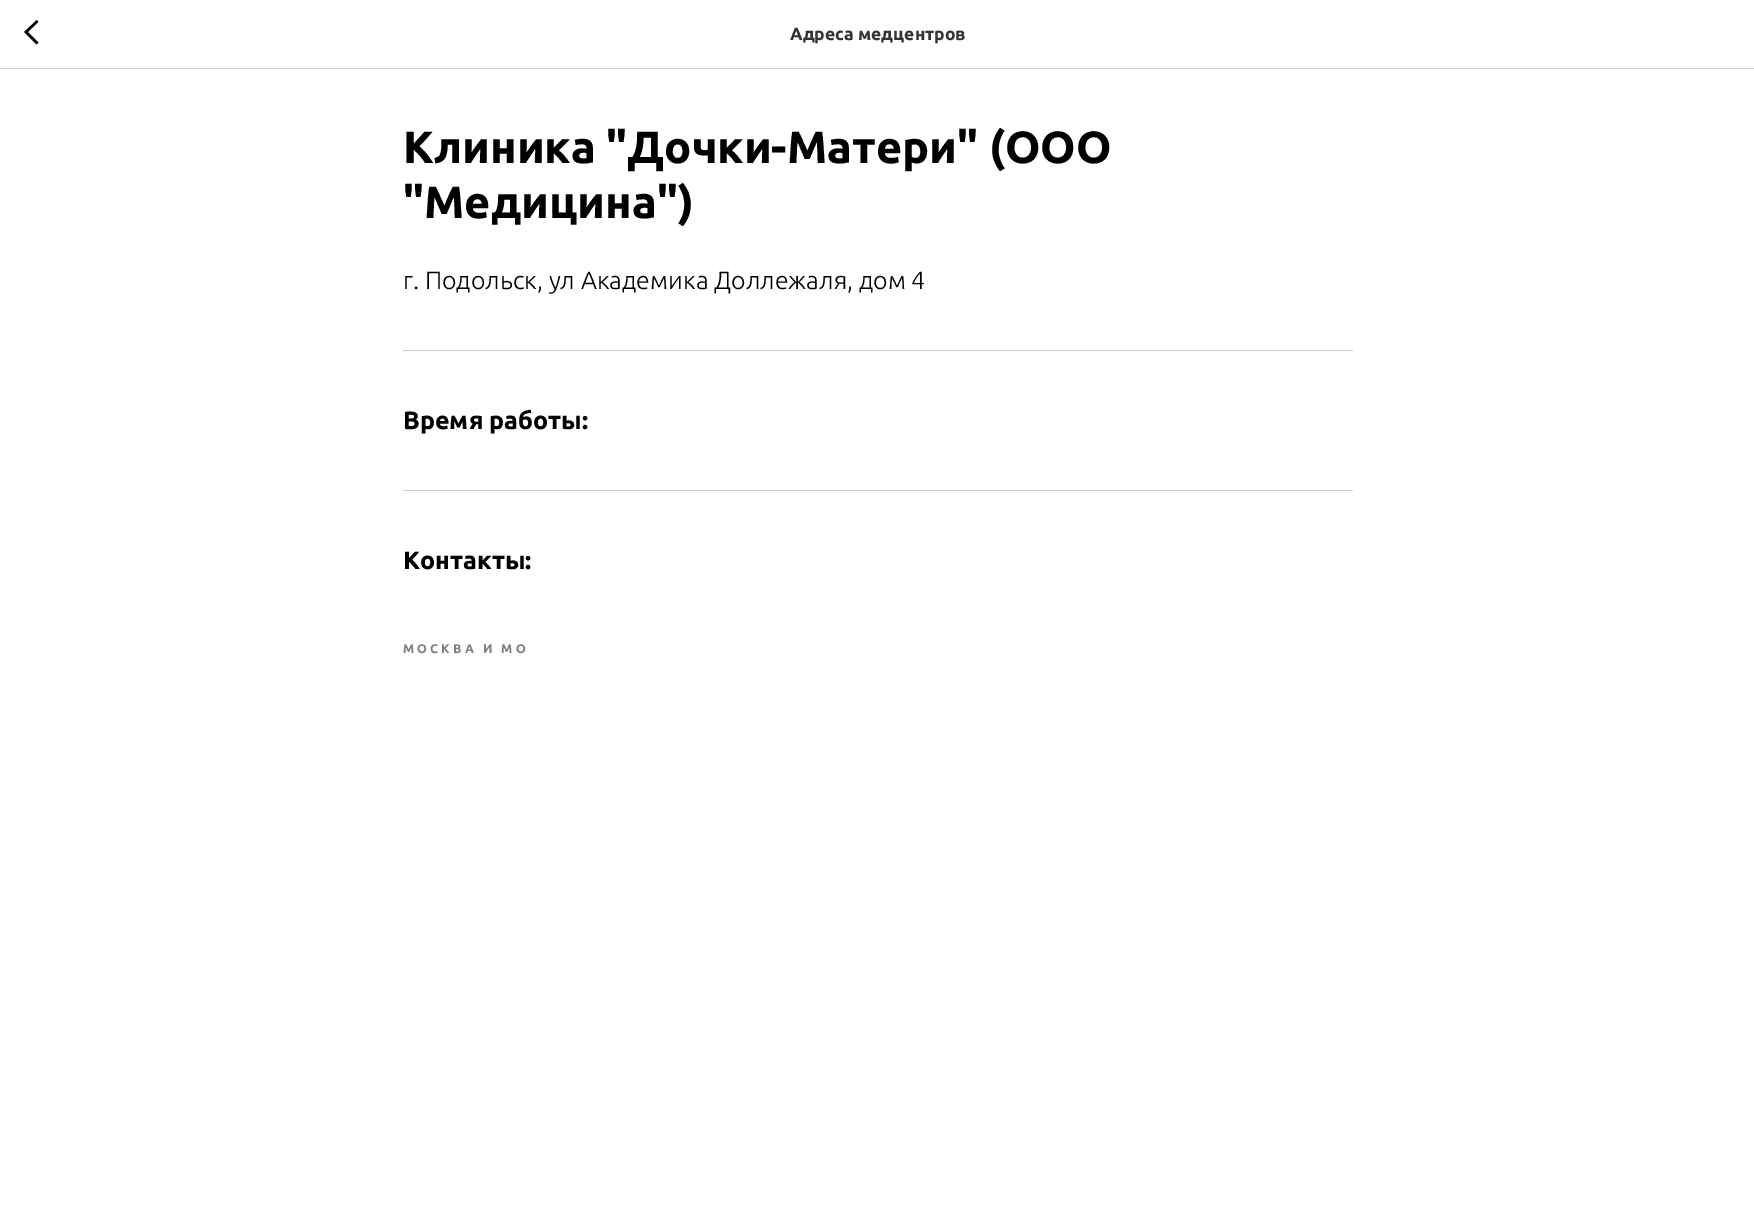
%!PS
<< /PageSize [1754 1206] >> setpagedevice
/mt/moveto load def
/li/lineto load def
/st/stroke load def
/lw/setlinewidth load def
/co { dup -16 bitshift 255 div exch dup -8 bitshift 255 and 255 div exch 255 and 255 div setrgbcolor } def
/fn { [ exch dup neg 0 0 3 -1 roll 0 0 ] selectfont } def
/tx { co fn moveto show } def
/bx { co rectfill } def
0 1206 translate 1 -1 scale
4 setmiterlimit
0 0 1754 1206 16#FFFFFF bx
0 68 1754 1 16#CCCCCC bx
16#000000 co
2.5 lw
37.5 43.5 mt 26 32 li 37.5 21 li st
403 350 950 1 16#CCCCCC bx
403 490 950 1 16#CCCCCC bx
(Адреса медцентров) 790 40 /Ubuntu-Bold 17.5 16#333333 tx
(Клиника "Дочки-Матери" \(ООО) 403 163 /Ubuntu-Bold 45 16#000000 tx
("Медицина"\)) 403 218 /Ubuntu-Bold 45 16#000000 tx
(г. Подольск, ул Академика Доллежаля, дом 4) 403 289 /Ubuntu-Light 25 16#000000 tx
(Время работы:) 403 429 /Ubuntu-Bold 25 16#000000 tx
(Контакты:) 403 569 /Ubuntu-Bold 25 16#000000 tx
/Ubuntu-Bold 12.5 fn
16#808080 co
403 653 mt 3.1 0 (МОСКВА И МО) ashow
showpage
